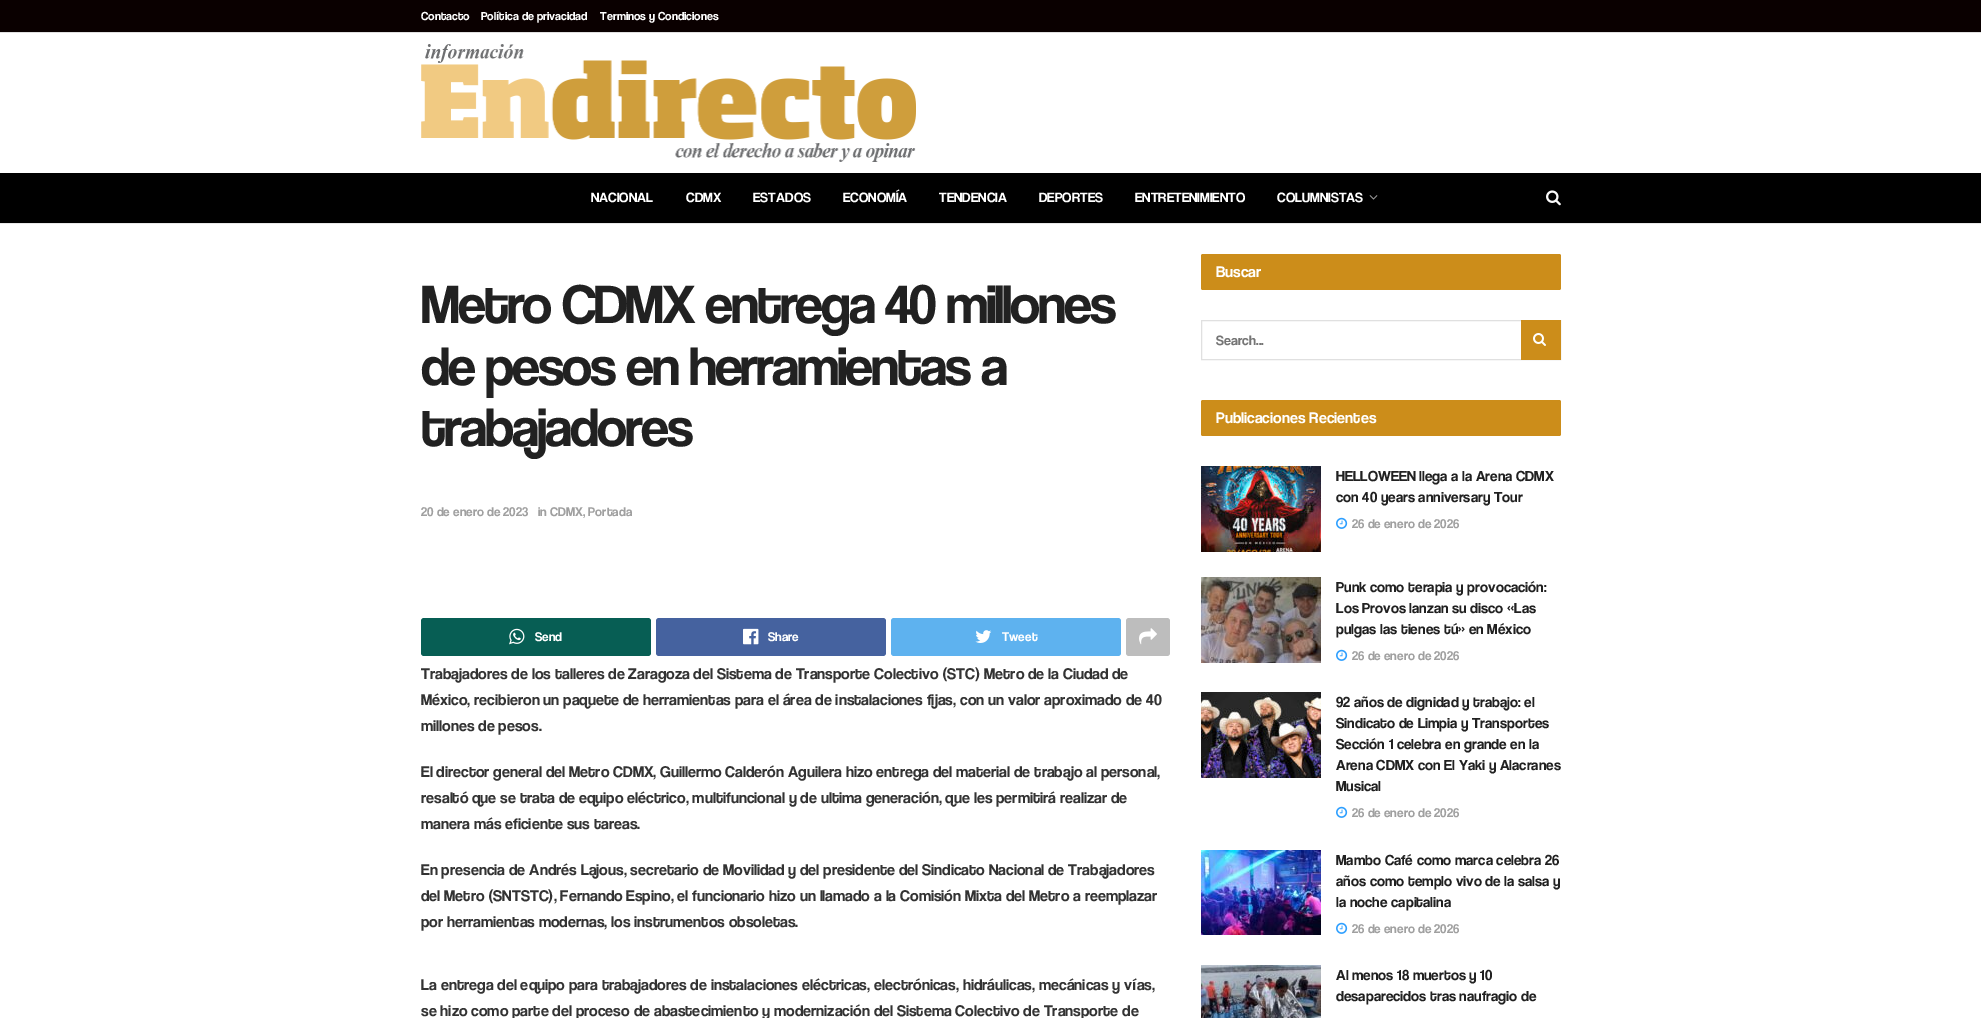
%!PS
<< /PageSize [1981 1018] >> setpagedevice
/mt/moveto load def
/fl/fill load def
/gs/gsave load def
/gr/grestore load def
/co { dup -16 bitshift 255 div exch dup -8 bitshift 255 and 255 div exch 255 and 255 div setrgbcolor } def
/fn { [ exch dup neg 0 0 3 -1 roll 0 0 ] selectfont } def
/tx { co fn moveto show } def
/bx { co rectfill } def
/rr { 5 dict begin { /r /h /w /y /x } { exch def } forall
  x r add y moveto x w add y 2 copy h add r arct x w add y h add x 1 index r arct
  x y h add x y r arct x y 2 copy exch w add exch r arct closepath end } def
/im { 5 dict begin { /h /w /y /x /name } { exch def } forall
  gsave x y translate w h scale
  w h 8 [w 0 0 h 0 0] name (r) file false 3 colorimage grestore end } def
0 1018 translate 1 -1 scale
4 setmiterlimit
0 0 1981 1018 16#FFFFFF bx
0 0 1981 32 16#0A0000 bx
0 32 1981 1 16#E0E0E0 bx
(media/1.raw) 421 44 495 118 im
0 173 1981 50 16#000000 bx
0 223 1981 1 16#E8E8E8 bx
(media/2.raw) 1369 195 9 5 im
(media/3.raw) 1546 190 15 16 im
16#075E54 co
421 618 230 38 3 rr fl
(media/4.raw) 509 628 16 17 im
16#45629F co
656 618 230 38 3 rr fl
(media/5.raw) 743 628 16 17 im
16#5EB2EF co
891 618 230 38 3 rr fl
(media/6.raw) 975 630 17 13 im
16#BDBDBD co
1126 618 44 38 3 rr fl
(media/7.raw) 1139 628 18 17 im
16#CC8D1A co
1201 254 360 36 2 rr fl
16#E0E0E0 co
1201.5 320.5 359 39 rectstroke
1521 320 40 40 16#CC8D1A bx
(media/8.raw) 1533 333 13 13 im
1201 400 360 36 2 rr fl
(media/9.raw) 1201 466 120 86 im
(media/10.raw) 1336 517 12 12 im
(media/11.raw) 1201 577 120 86 im
(media/10.raw) 1336 649 12 12 im
(media/12.raw) 1201 692 120 86 im
(media/10.raw) 1336 806 12 12 im
(media/13.raw) 1201 850 120 85 im
(media/10.raw) 1336 922 12 12 im
(media/14.raw) 1201 965 120 53 im
(Contacto) 421 20 /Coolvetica-Regular 12 16#FFFFFF tx
(Política de privacidad) 481 20 /Coolvetica-Regular 12 16#FFFFFF tx
(Terminos y Condiciones) 600 20 /Coolvetica-Regular 12 16#FFFFFF tx
(NACIONAL) 591 202 /Coolvetica-Regular 14 16#FFFFFF tx
(CDMX) 686 202 /Coolvetica-Regular 14 16#FFFFFF tx
(ESTADOS) 753 202 /Coolvetica-Regular 14 16#FFFFFF tx
(ECONOMÍA) 843 202 /Coolvetica-Regular 14 16#FFFFFF tx
(TENDENCIA) 939 202 /Coolvetica-Regular 14 16#FFFFFF tx
(DEPORTES) 1039 202 /Coolvetica-Regular 14 16#FFFFFF tx
(ENTRETENIMIENTO) 1135 202 /Coolvetica-Regular 14 16#FFFFFF tx
(COLUMNISTAS) 1277 202 /Coolvetica-Regular 14 16#FFFFFF tx
/Coolvetica-Regular 56 fn
16#212121 co
421 323 mt -2.25 0 (Metro CDMX entrega 40 millones) ashow
421 385 mt -2.25 0 (de pesos en herramientas a) ashow
421 446 mt -2.25 0 (trabajadores) ashow
(20 de enero de 2023) 421 516 /Coolvetica-Regular 13 16#A0A0A0 tx
(in CDMX, Portada) 538 516 /Coolvetica-Regular 13 16#A0A0A0 tx
(Send) 535 641 /Coolvetica-Regular 13 16#FFFFFF tx
(Share) 768 641 /Coolvetica-Regular 13 16#FFFFFF tx
(Tweet) 1002 641 /Coolvetica-Regular 13 16#FFFFFF tx
(Trabajadores de los talleres de Zaragoza del Sistema de Transporte Colectivo \(STC\) Metro de la Ciudad de) 421 679 /Coolvetica-Regular 16 16#333333 tx
(México, recibieron un paquete de herramientas para el área de instalaciones fijas, con un valor aproximado de 40) 421 705 /Coolvetica-Regular 16 16#333333 tx
(millones de pesos.) 421 731 /Coolvetica-Regular 16 16#333333 tx
(El director general del Metro CDMX, Guillermo Calderón Aguilera hizo entrega del material de trabajo al personal,) 421 777 /Coolvetica-Regular 16 16#333333 tx
(resaltó que se trata de equipo eléctrico, multifuncional y de ultima generación, que les permitirá realizar de) 421 803 /Coolvetica-Regular 16 16#333333 tx
(manera más eficiente sus tareas.) 421 829 /Coolvetica-Regular 16 16#333333 tx
(En presencia de Andrés Lajous, secretario de Movilidad y del presidente del Sindicato Nacional de Trabajadores) 421 875 /Coolvetica-Regular 16 16#333333 tx
(del Metro \(SNTSTC\), Fernando Espino, el funcionario hizo un llamado a la Comisión Mixta del Metro a reemplazar) 421 901 /Coolvetica-Regular 16 16#333333 tx
(por herramientas modernas, los instrumentos obsoletas.) 421 927 /Coolvetica-Regular 16 16#333333 tx
(La entrega del equipo para trabajadores de instalaciones eléctricas, electrónicas, hidráulicas, mecánicas y vías,) 421 990 /Coolvetica-Regular 16 16#333333 tx
(se hizo como parte del proceso de abastecimiento y modernización del Sistema Colectivo de Transporte de) 421 1016 /Coolvetica-Regular 16 16#333333 tx
(Buscar) 1216 277 /Coolvetica-Regular 16 16#FFFFFF tx
gs
1216 332 294 17 rectclip
(Search...) 1216 345 /Coolvetica-Regular 14 16#757575 tx
gr
(Publicaciones Recientes) 1216 423 /Coolvetica-Regular 16 16#FFFFFF tx
(HELLOWEEN llega a la Arena CDMX) 1336 481 /Coolvetica-Regular 15 16#212121 tx
(con 40 years anniversary Tour) 1336 502 /Coolvetica-Regular 15 16#212121 tx
(26 de enero de 2026) 1352 528 /Coolvetica-Regular 13 16#A0A0A0 tx
(Punk como terapia y provocación:) 1336 592 /Coolvetica-Regular 15 16#212121 tx
(Los Provos lanzan su disco «Las) 1336 613 /Coolvetica-Regular 15 16#212121 tx
(pulgas las tienes tú» en México) 1336 634 /Coolvetica-Regular 15 16#212121 tx
(26 de enero de 2026) 1352 660 /Coolvetica-Regular 13 16#A0A0A0 tx
(92 años de dignidad y trabajo: el) 1336 707 /Coolvetica-Regular 15 16#212121 tx
(Sindicato de Limpia y Transportes) 1336 728 /Coolvetica-Regular 15 16#212121 tx
(Sección 1 celebra en grande en la) 1336 749 /Coolvetica-Regular 15 16#212121 tx
(Arena CDMX con El Yaki y Alacranes) 1336 770 /Coolvetica-Regular 15 16#212121 tx
(Musical) 1336 791 /Coolvetica-Regular 15 16#212121 tx
(26 de enero de 2026) 1352 817 /Coolvetica-Regular 13 16#A0A0A0 tx
(Mambo Café como marca celebra 26) 1336 865 /Coolvetica-Regular 15 16#212121 tx
(años como templo vivo de la salsa y) 1336 886 /Coolvetica-Regular 15 16#212121 tx
(la noche capitalina) 1336 907 /Coolvetica-Regular 15 16#212121 tx
(26 de enero de 2026) 1352 933 /Coolvetica-Regular 13 16#A0A0A0 tx
(Al menos 18 muertos y 10) 1336 980 /Coolvetica-Regular 15 16#212121 tx
(desaparecidos tras naufragio de) 1336 1001 /Coolvetica-Regular 15 16#212121 tx
showpage
